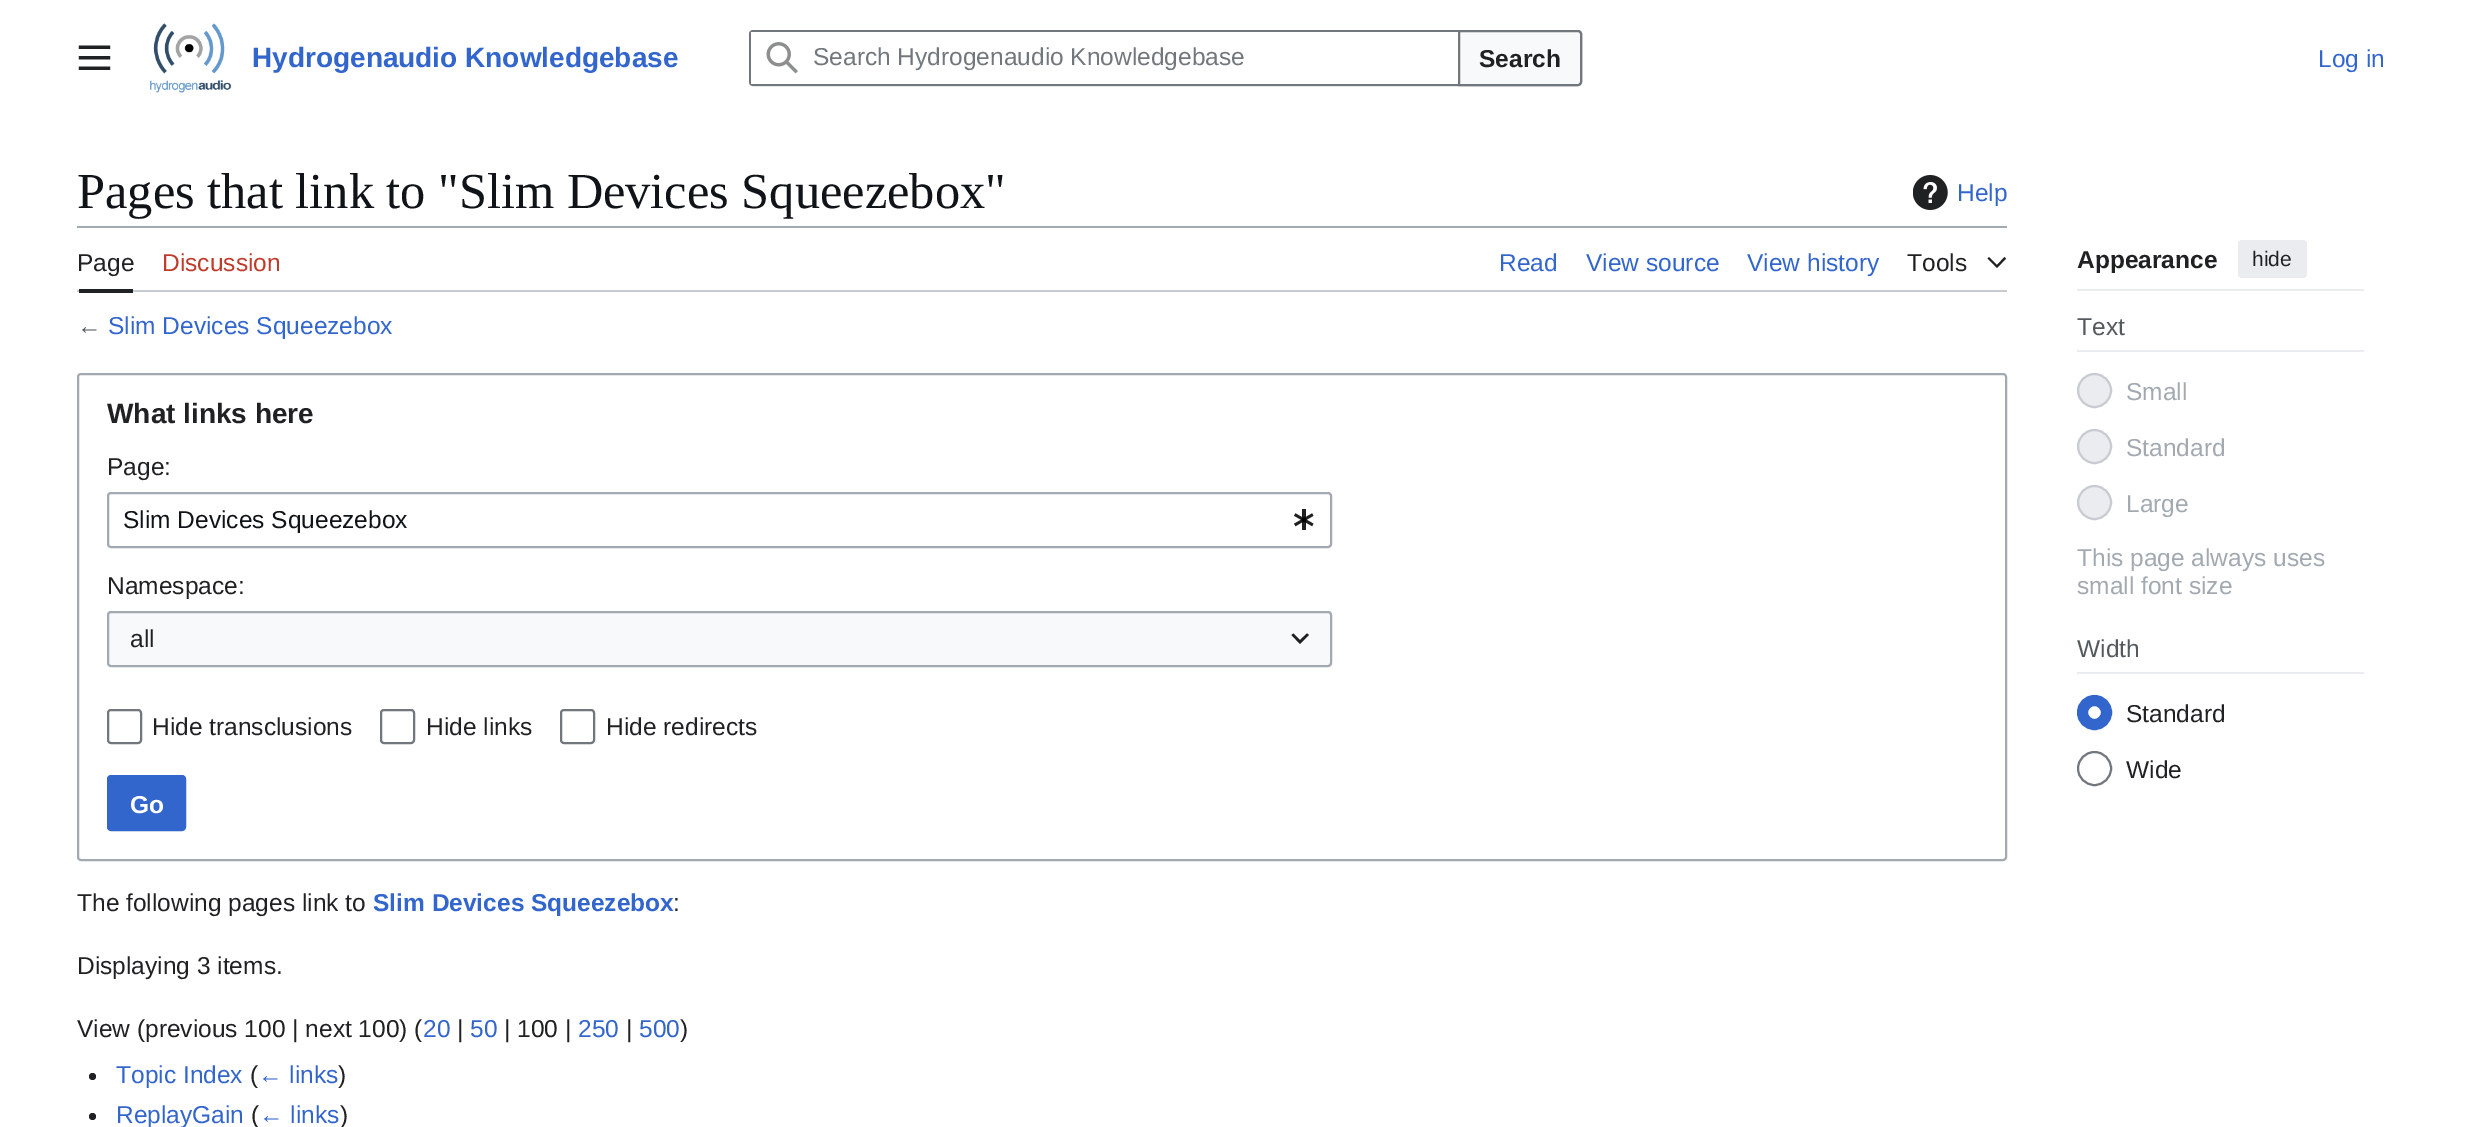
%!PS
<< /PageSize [2468 1127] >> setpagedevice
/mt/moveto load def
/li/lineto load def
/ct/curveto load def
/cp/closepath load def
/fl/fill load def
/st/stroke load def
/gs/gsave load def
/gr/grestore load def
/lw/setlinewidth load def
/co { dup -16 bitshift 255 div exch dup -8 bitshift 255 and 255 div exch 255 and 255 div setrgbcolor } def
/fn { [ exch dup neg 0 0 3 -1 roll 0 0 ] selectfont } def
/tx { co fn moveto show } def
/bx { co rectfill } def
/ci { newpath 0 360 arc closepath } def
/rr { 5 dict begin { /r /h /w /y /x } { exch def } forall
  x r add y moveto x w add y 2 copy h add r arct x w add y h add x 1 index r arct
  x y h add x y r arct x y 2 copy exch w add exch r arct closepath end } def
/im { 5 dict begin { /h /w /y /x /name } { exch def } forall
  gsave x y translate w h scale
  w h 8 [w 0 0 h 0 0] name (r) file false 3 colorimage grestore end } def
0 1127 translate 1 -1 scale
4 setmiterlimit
0 0 2468 1127 16#FFFFFF bx
(media/1.raw) 78 45 33 25 im
(media/2.raw) 150 23 82 70 im
16#A2A9B1 co
2 lw
750 31 831 54 3 rr st
16#F8F9FA co
1459 31 mt 1578 31 li 1579.5 31 1581 32.5 1581 34 ct 1581 82 li 1581 83.5 1579.5 85 1578 85 ct 1459 85 li cp gs fl gr
16#72777D co
st
16#FFFFFF co
753 30 mt 1460 30 li 1460 86 li 753 86 li 751 86 749 84 749 82 ct 749 34 li 749 32 751 30 753 30 ct cp fl
16#72777D co
753 30 mt 751 30 749 32 749 34 ct 749 82 li 749 84 751 86 753 86 ct 1460 86 li 1460 30 li cp 751 32 mt 751 84 li 1458 84 li 1458 32 li cp eofill
(media/3.raw) 766 42 32 32 im
(media/4.raw) 1913 175 35 35 im
77 226 1930 2 16#A2A9B1 bx
77 290 1930 2 16#C8CCD1 bx
79 289 54 4 16#202122 bx
2004.5 257 mt 1997 265 li 1989 257 li 1987.5 258.5 li 1997 268 li 2006 258.5 li cp fl
2077 289 287 2 16#EAECF0 bx
2238 240 69 38 4 rr fl
2077 350 287 2 16#EAECF0 bx
2094.5 390.5 16.5 ci gs fl gr
16#C8CCD1 co
st
16#EAECF0 co
2094.5 446.5 16.5 ci gs fl gr
16#C8CCD1 co
st
16#EAECF0 co
2094.5 502.5 16.5 ci gs fl gr
16#C8CCD1 co
st
2077 672 287 2 16#EAECF0 bx
16#3366CC co
11 lw
2094.5 712.5 12 ci st
16#72777D co
2 lw
2094.5 768.5 16.5 ci st
16#A2A9B1 co
78 374 1928 486 3 rr st
108 493 1223 54 3 rr st
(media/5.raw) 1294 509 20 21 im
107 611 1225 56 16#F8F9FA bx
16#A2A9B1 co
108 612 1223 54 3 rr st
16#202021 co
1307 633.5 mt 1300 640 li 1293.5 633.5 li 1291.5 635 li 1300 644 li 1309 635 li cp fl
16#72777D co
108 710 33 33 3 rr st
381 710 33 33 3 rr st
561 710 33 33 3 rr st
16#3366CC co
108 776 77 54 3 rr gs fl gr
st
16#202122 co
92.5 1076.5 3.5 ci fl
92.5 1116.5 3.5 ci fl
(Hydrogenaudio Knowledgebase) 252 67 /LiberationSans-Bold 28 16#3366CC tx
(Search Hydrogenaudio Knowledgebase) 813 65 /LiberationSans-Regular 24.5 16#72777D tx
(Search) 1479 67 /LiberationSans-Bold 24.5 16#202122 tx
(Log in) 2318 67 /LiberationSans-Regular 24.5 16#3366CC tx
(Pages that link to "Slim Devices Squeezebox") 77 208 /LiberationSerif-Regular 50.4 16#101418 tx
(Help) 1957 201 /LiberationSans-Regular 24.5 16#3366CC tx
(Page) 77 271 /LiberationSans-Regular 24.5 16#202122 tx
(Discussion) 162 271 /LiberationSans-Regular 24.5 16#BF3C2C tx
(Read) 1499 271 /LiberationSans-Regular 24.5 16#3366CC tx
(View source) 1586 271 /LiberationSans-Regular 24.5 16#3366CC tx
(View history) 1747 271 /LiberationSans-Regular 24.5 16#3366CC tx
(Tools) 1907 271 /LiberationSans-Regular 24.5 16#202122 tx
(Appearance) 2077 268 /LiberationSans-Bold 24.5 16#202122 tx
(hide) 2252 266 /LiberationSans-Regular 21 16#202122 tx
(Text) 2077 335 /LiberationSans-Regular 24.5 16#54595D tx
(Small) 2126 400 /LiberationSans-Regular 24.5 16#A2A9B1 tx
(Standard) 2126 456 /LiberationSans-Regular 24.5 16#A2A9B1 tx
(Large) 2126 512 /LiberationSans-Regular 24.5 16#A2A9B1 tx
(This page always uses) 2077 566 /LiberationSans-Regular 24.5 16#A2A9B1 tx
(small font size) 2077 594 /LiberationSans-Regular 24.5 16#A2A9B1 tx
(Width) 2077 657 /LiberationSans-Regular 24.5 16#54595D tx
(Standard) 2126 722 /LiberationSans-Regular 24.5 16#202122 tx
(Wide) 2126 778 /LiberationSans-Regular 24.5 16#202122 tx
(←) 77 334 /LiberationSans-Regular 24.5 16#54595D tx
(Slim Devices Squeezebox) 108 334 /LiberationSans-Regular 24.5 16#3366CC tx
(What links here) 107 423 /LiberationSans-Bold 28 16#202122 tx
(Page:) 107 475 /LiberationSans-Regular 24.5 16#202122 tx
(Slim Devices Squeezebox) 123 528 /LiberationSans-Regular 24.5 16#101418 tx
(Namespace:) 107 594 /LiberationSans-Regular 24.5 16#202122 tx
(all) 130 647 /LiberationSans-Regular 24.5 16#202122 tx
(Hide transclusions) 152 735 /LiberationSans-Regular 24.5 16#202122 tx
(Hide links) 426 735 /LiberationSans-Regular 24.5 16#202122 tx
(Hide redirects) 606 735 /LiberationSans-Regular 24.5 16#202122 tx
(Go) 130 813 /LiberationSans-Bold 24.5 16#FFFFFF tx
(The following pages link to) 77 911 /LiberationSans-Regular 24.5 16#202122 tx
(Slim Devices Squeezebox) 373 911 /LiberationSans-Bold 24.5 16#3366CC tx
(:) 673 911 /LiberationSans-Regular 24.5 16#202122 tx
(Displaying 3 items.) 77 974 /LiberationSans-Regular 24.5 16#202122 tx
(View \(previous 100 | next 100\) \() 77 1037 /LiberationSans-Regular 24.5 16#202122 tx
(20) 423 1037 /LiberationSans-Regular 24.5 16#3366CC tx
(|) 457 1037 /LiberationSans-Regular 24.5 16#202122 tx
(50) 470 1037 /LiberationSans-Regular 24.5 16#3366CC tx
(| 100 |) 504 1037 /LiberationSans-Regular 24.5 16#202122 tx
(250) 578 1037 /LiberationSans-Regular 24.5 16#3366CC tx
(|) 626 1037 /LiberationSans-Regular 24.5 16#202122 tx
(500) 639 1037 /LiberationSans-Regular 24.5 16#3366CC tx
(\)) 680 1037 /LiberationSans-Regular 24.5 16#202122 tx
(Topic Index) 116 1083 /LiberationSans-Regular 24.5 16#3366CC tx
(\() 250 1083 /LiberationSans-Regular 24.5 16#202122 tx
(← links) 258 1083 /LiberationSans-Regular 24.5 16#3366CC tx
(\)) 338 1083 /LiberationSans-Regular 24.5 16#202122 tx
(ReplayGain) 116 1123 /LiberationSans-Regular 24.5 16#3366CC tx
(\() 251 1123 /LiberationSans-Regular 24.5 16#202122 tx
(← links) 259 1123 /LiberationSans-Regular 24.5 16#3366CC tx
(\)) 340 1123 /LiberationSans-Regular 24.5 16#202122 tx
showpage
